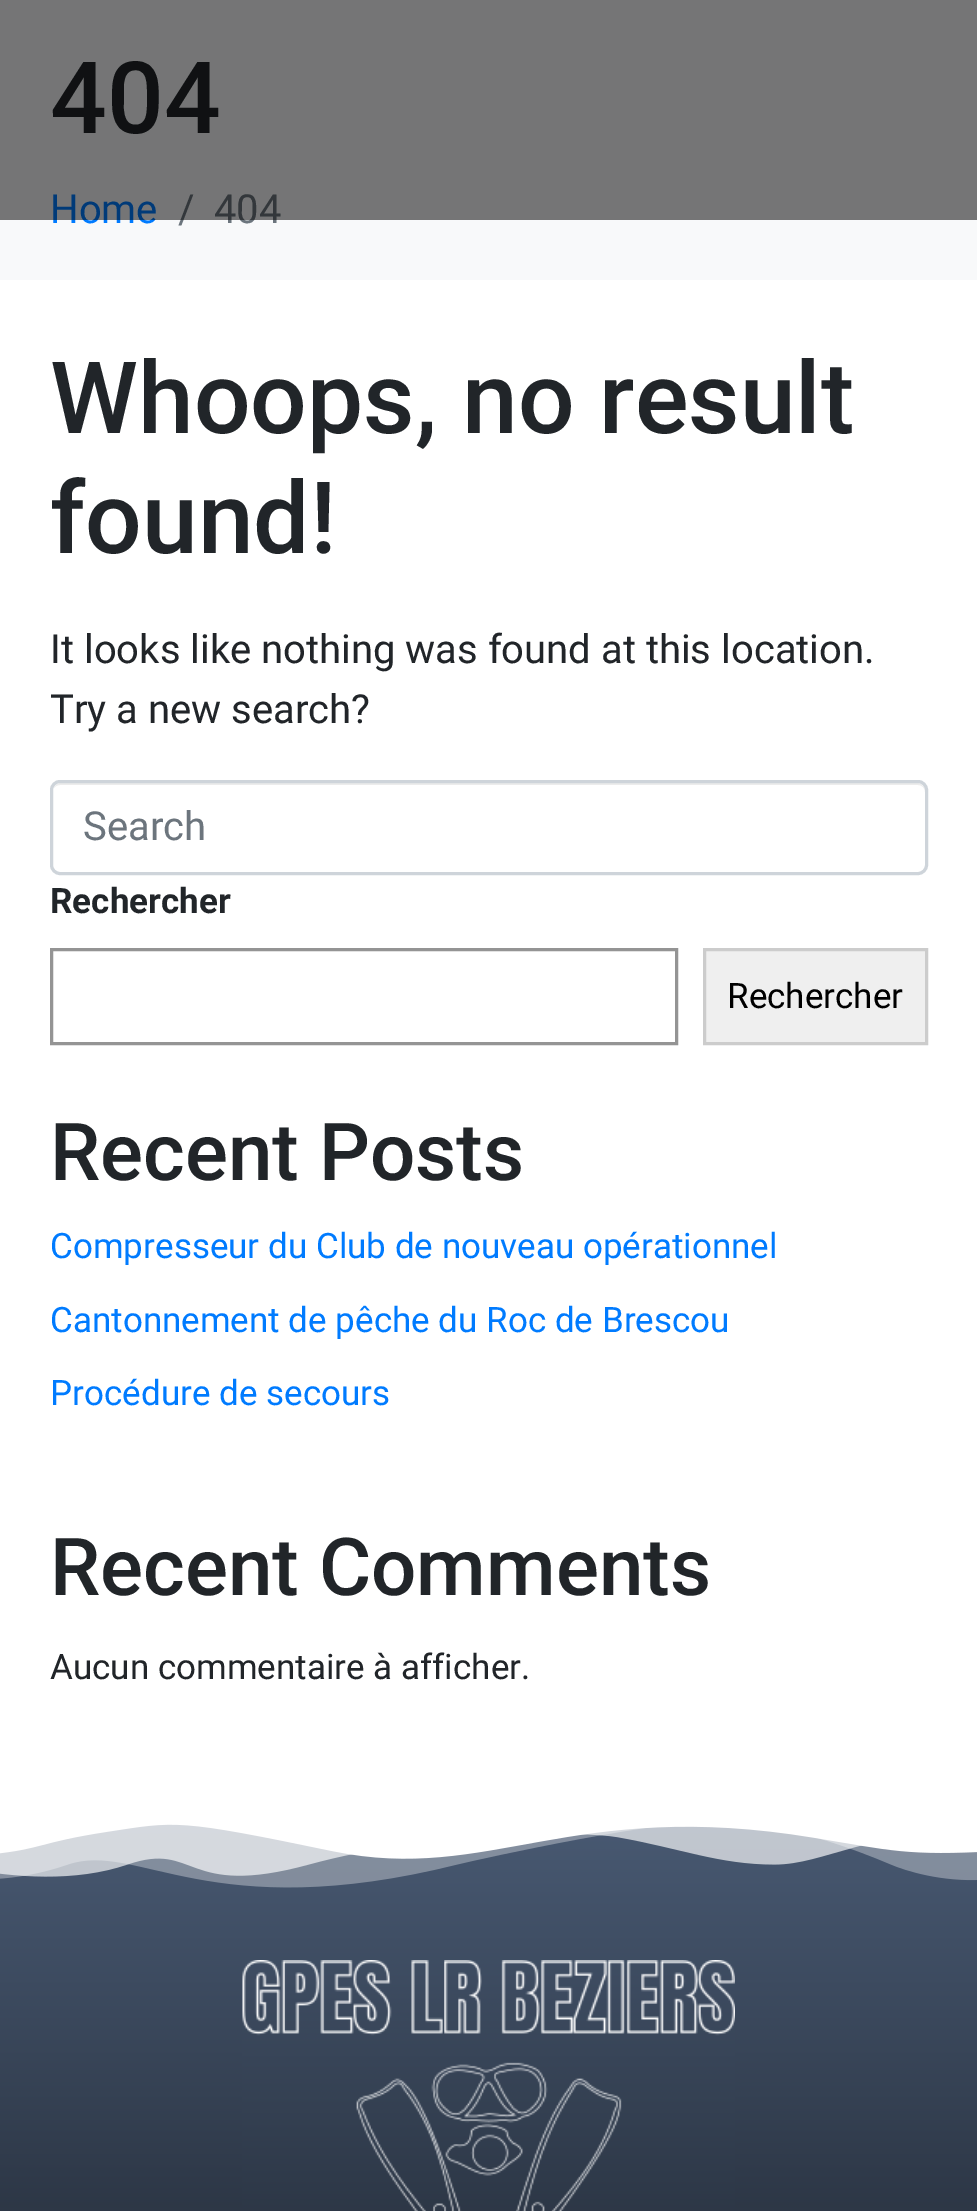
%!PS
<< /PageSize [977 2211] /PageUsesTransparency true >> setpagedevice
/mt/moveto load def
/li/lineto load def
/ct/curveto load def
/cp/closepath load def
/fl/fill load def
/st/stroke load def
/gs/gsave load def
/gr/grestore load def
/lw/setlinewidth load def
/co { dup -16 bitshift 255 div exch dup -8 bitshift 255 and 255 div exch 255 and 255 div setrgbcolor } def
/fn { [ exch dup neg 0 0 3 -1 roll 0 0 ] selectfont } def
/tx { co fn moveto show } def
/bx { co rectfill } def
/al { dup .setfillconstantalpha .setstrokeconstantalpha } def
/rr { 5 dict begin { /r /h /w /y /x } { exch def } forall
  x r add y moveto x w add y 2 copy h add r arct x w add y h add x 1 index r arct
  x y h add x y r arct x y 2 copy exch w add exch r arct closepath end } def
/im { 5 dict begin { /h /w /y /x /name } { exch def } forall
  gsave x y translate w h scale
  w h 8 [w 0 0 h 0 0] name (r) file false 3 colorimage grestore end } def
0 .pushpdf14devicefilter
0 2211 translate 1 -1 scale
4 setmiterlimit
0 0 977 2211 16#FFFFFF bx
0 0 977 280 16#F8F9FA bx
16#ECECEC co
60 785 mt 918 785 li 922 785 925 788 925 792 ct 925 791 li 925 787 921 783 917 783 ct 61 783 li 58 783 55 785 54 788 ct 55 786 58 785 60 785 ct cp fl
16#CED4DA co
3 lw
51.5 781.5 875 92 8.5 rr st
16#949494 co
51.5 949.5 625 94 rectstroke
16#EFEFEF co
704.5 949.5 mt 926.5 949.5 li 926.5 1043.5 li 704.5 1043.5 li cp gs fl gr
16#CCCCCC co
st
gs 0 1824 mt 977 1824 li 977 2211 li 0 2211 li cp clip newpath
<< /ShadingType 2 /ColorSpace /DeviceRGB /Coords [489 1820 489 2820] /Extend [true true] /Function << /FunctionType 2 /Domain [0 1] /C0 [.282 .349 .447] /C1 [.008 .008 .008] /N 1 >> >> shfill gr
(media/1.raw) 0 1820 977 68 im
(media/2.raw) 242 1960 493 251 im
(404) 50 133 /Roboto-Medium 100 16#212529 tx
(Home) 50 223 /Roboto-Regular 40 16#007BFF tx
(/) 178 223 /Roboto-Regular 40 16#6C757D tx
(404) 214 223 /Roboto-Regular 40 16#6C757D tx
0.53 al
0 0 977 220 16#000000 bx
1 al
(Whoops, no result) 50 433 /Roboto-Medium 100 16#212529 tx
(found!) 50 553 /Roboto-Medium 100 16#212529 tx
(It looks like nothing was found at this location.) 50 663 /Roboto-Regular 40 16#212529 tx
(Try a new search?) 50 723 /Roboto-Regular 40 16#212529 tx
(Search) 83 840 /Roboto-Regular 40 16#6C757D tx
(Rechercher) 50 913 /Roboto-Bold 35 16#212529 tx
(Rechercher) 727 1008 /Roboto-Regular 35 16#000000 tx
(Recent Posts) 50 1180 /Roboto-Medium 80 16#212529 tx
(Compresseur du Club de nouveau opérationnel) 50 1258 /Roboto-Regular 35 16#007BFF tx
(Cantonnement de pêche du Roc de Brescou) 50 1332 /Roboto-Regular 35 16#007BFF tx
(Procédure de secours) 50 1405 /Roboto-Regular 35 16#007BFF tx
(Recent Comments) 50 1595 /Roboto-Medium 80 16#212529 tx
(Aucun commentaire à afficher.) 50 1679 /Roboto-Regular 35 16#212529 tx
.poppdf14devicefilter showpage
